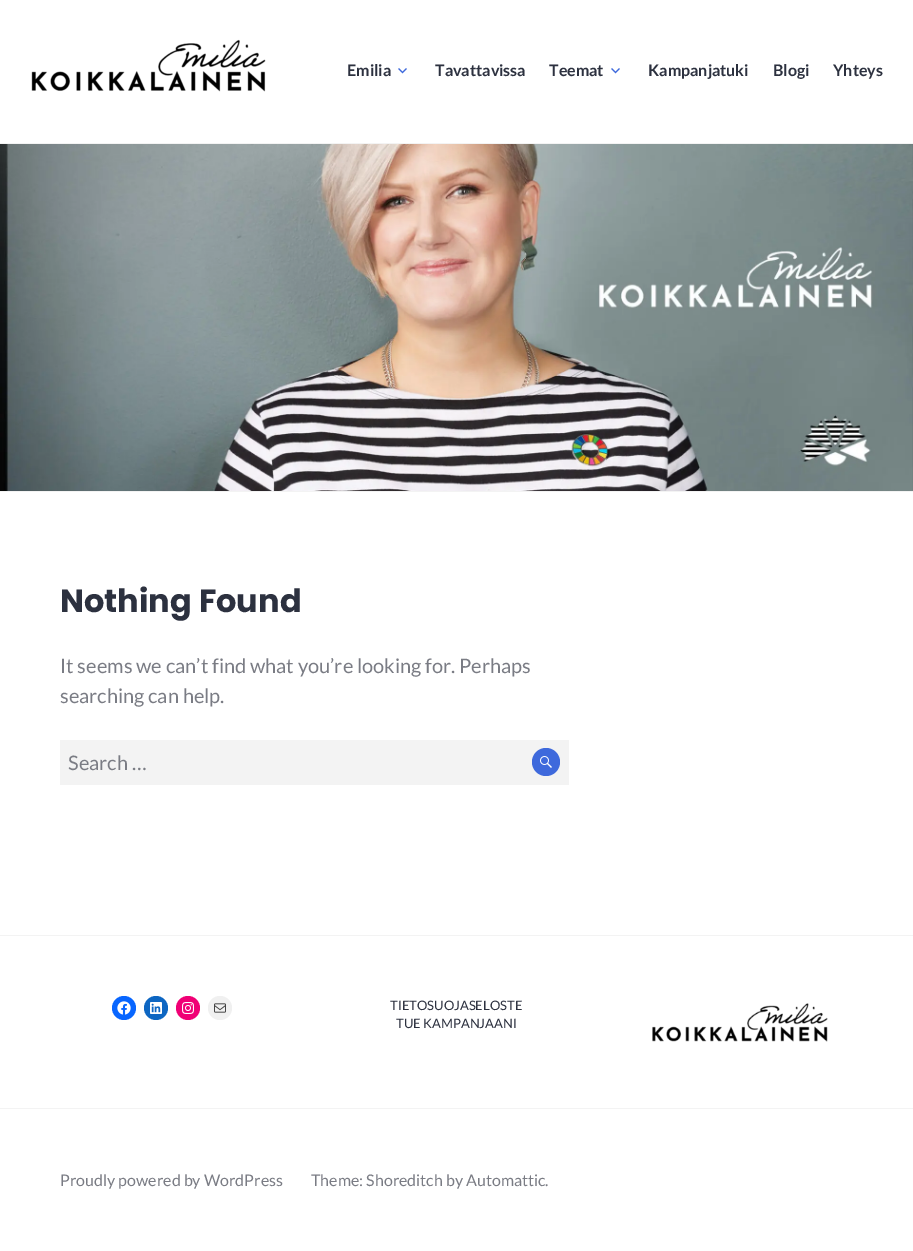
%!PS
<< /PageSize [913 1251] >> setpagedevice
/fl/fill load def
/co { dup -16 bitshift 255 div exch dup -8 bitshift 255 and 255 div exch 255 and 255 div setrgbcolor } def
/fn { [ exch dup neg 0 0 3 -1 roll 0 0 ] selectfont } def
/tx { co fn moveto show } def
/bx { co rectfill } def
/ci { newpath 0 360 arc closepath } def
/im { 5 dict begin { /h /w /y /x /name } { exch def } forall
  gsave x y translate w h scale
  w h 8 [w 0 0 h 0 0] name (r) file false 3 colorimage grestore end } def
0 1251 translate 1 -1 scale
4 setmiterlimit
0 0 913 1251 16#FFFFFF bx
0 143 913 1 16#F3F3F3 bx
(media/1.raw) 31 39 235 53 im
(media/2.raw) 398 68 9 6 im
(media/2.raw) 611 68 9 6 im
0 491 913 1 16#F3F3F3 bx
(media/3.raw) 0 144 913 347 im
60 740 509 45 16#F3F3F3 bx
16#3E69DC co
546 762 14 ci fl
(media/4.raw) 540 756 12 12 im
0 935 913 1 16#F3F3F3 bx
16#0866FF co
124 1008 12 ci fl
(media/5.raw) 117 1001 14 14 im
16#0D66C2 co
156 1008 12 ci fl
(media/6.raw) 150 1002 12 12 im
16#F00075 co
188 1008 12 ci fl
(media/7.raw) 182 1002 12 12 im
16#F0F0F0 co
220 1008 12 ci fl
(media/8.raw) 214 1003 12 10 im
(media/9.raw) 652 1003 176 39 im
0 1108 913 1 16#F3F3F3 bx
(Emilia) 347 76 /Lato-Bold 16 16#2C313F tx
(Tavattavissa) 435 76 /Lato-Bold 16 16#2C313F tx
(Teemat) 549 76 /Lato-Bold 16 16#2C313F tx
(Kampanjatuki) 648 76 /Lato-Bold 16 16#2C313F tx
(Blogi) 773 76 /Lato-Bold 16 16#2C313F tx
(Yhteys) 833 76 /Lato-Bold 16 16#2C313F tx
(Nothing Found) 60 612 /Poppins-Bold 32 16#2C313F tx
(It seems we can’t find what you’re looking for. Perhaps) 60 673 /Lato-Regular 20 16#7A7C84 tx
(searching can help.) 60 703 /Lato-Regular 20 16#7A7C84 tx
(Search …) 68 770 /Lato-Regular 20 16#7A7C84 tx
(TIETOSUOJASELOSTE) 390 1010 /Lato-Regular 13 16#2C313F tx
(TUE KAMPANJAANI) 396 1028 /Lato-Regular 13 16#2C313F tx
(Proudly powered by WordPress) 60 1186 /Lato-Regular 16 16#7A7C84 tx
(Theme: Shoreditch by Automattic.) 311 1186 /Lato-Regular 16 16#7A7C84 tx
showpage
